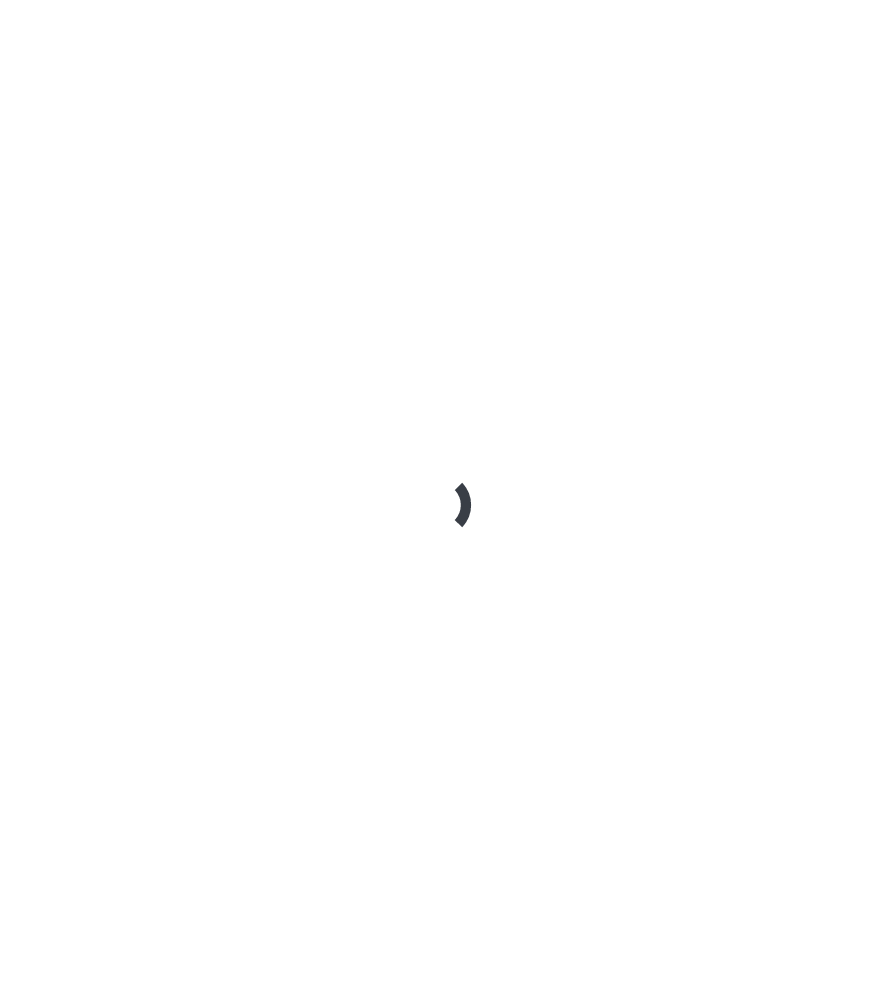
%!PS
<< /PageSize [879 1008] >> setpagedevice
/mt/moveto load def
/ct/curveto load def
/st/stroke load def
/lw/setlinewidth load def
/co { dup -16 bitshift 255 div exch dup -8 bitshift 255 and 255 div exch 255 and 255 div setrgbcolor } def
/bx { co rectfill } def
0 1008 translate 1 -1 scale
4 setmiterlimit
0 0 879 1008 16#FFFFFF bx
16#393E46 co
10 lw
458.5 486.5 mt 468.5 496.5 468.5 513.5 458.5 523.5 ct 458.5 486.5 mt 468.5 496.5 468.5 513.5 458.5 523.5 ct 458.5 486.5 mt 468.5 496.5 468.5 513.5 458.5 523.5 ct st
showpage
